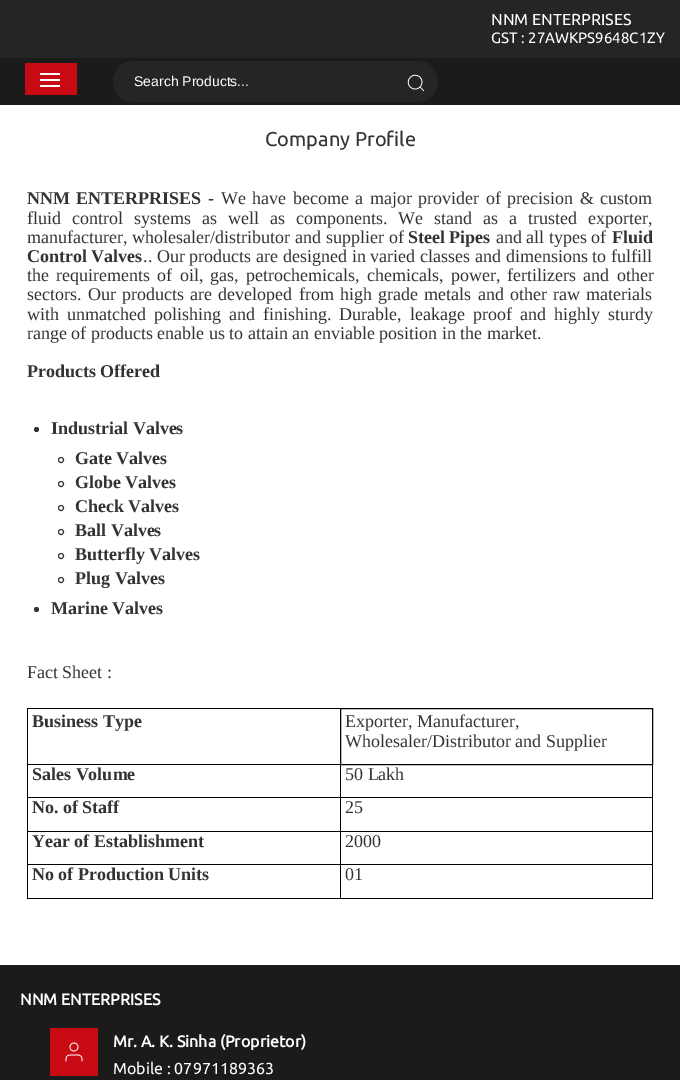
%!PS
<< /PageSize [680 1080] >> setpagedevice
/mt/moveto load def
/fl/fill load def
/st/stroke load def
/co { dup -16 bitshift 255 div exch dup -8 bitshift 255 and 255 div exch 255 and 255 div setrgbcolor } def
/fn { [ exch dup neg 0 0 3 -1 roll 0 0 ] selectfont } def
/tx { co fn moveto show } def
/bx { co rectfill } def
/ci { newpath 0 360 arc closepath } def
/rr { 5 dict begin { /r /h /w /y /x } { exch def } forall
  x r add y moveto x w add y 2 copy h add r arct x w add y h add x 1 index r arct
  x y h add x y r arct x y 2 copy exch w add exch r arct closepath end } def
/im { 5 dict begin { /h /w /y /x /name } { exch def } forall
  gsave x y translate w h scale
  w h 8 [w 0 0 h 0 0] name (r) file false 3 colorimage grestore end } def
0 1080 translate 1 -1 scale
4 setmiterlimit
0 0 680 1080 16#252525 bx
0 58 680 47 16#1B1B1B bx
25 63 52 32 16#C70A13 bx
40 73 20 2 16#FFFFFF bx
40 79 20 2 16#FFFFFF bx
40 85 20 2 16#FFFFFF bx
16#252525 co
113 61 325 41 20.5 rr fl
(media/1.raw) 407 74 18 18 im
0 105 680 860 16#FFFFFF bx
16#333333 co
36.5 429.5 2.5 ci fl
61 460 2.5 ci st
61 484 2.5 ci st
61 508 2.5 ci st
61 532 2.5 ci st
61 556 2.5 ci st
61 580 2.5 ci st
36.5 609.5 2.5 ci fl
27 708 313 1 16#000000 bx
27 764 313 1 16#000000 bx
27 708 1 57 16#000000 bx
340.5 708.5 312 56 rectstroke
27 797 313 1 16#000000 bx
27 765 1 33 16#000000 bx
652 765 1 134 16#000000 bx
340 797 313 1 16#000000 bx
340 765 1 33 16#000000 bx
27 831 626 1 16#000000 bx
27 798 1 34 16#000000 bx
340 798 1 34 16#000000 bx
27 864 626 1 16#000000 bx
27 832 1 33 16#000000 bx
340 832 1 33 16#000000 bx
27 898 626 1 16#000000 bx
27 865 1 34 16#000000 bx
340 865 1 34 16#000000 bx
0 965 680 115 16#1B1B1B bx
50 1028 48 48 16#C70A13 bx
(media/2.raw) 65 1042 18 20 im
(NNM ENTERPRISES) 491 25 /Ubuntu-Regular 16 16#FFFFFF tx
(GST : 27AWKPS9648C1ZY) 491 43 /Ubuntu-Regular 15 16#FFFFFF tx
(Search Products...) 134 86 /LiberationSans-Regular 14 16#FFFFFF tx
(Company Profile) 265 146 /Ubuntu-Regular 20 16#333333 tx
/LiberationSerif-Bold 18 fn
27 204 mt 2 0 32 (NNM ENTERPRISES -) widthshow
/LiberationSerif-Regular 18 fn
221 204 mt 2 0 32 (We have become a major provider of precision & custom) widthshow
27 224 mt 6.5 0 32 (fluid control systems as well as components. We stand as a trusted exporter,) widthshow
27 243 mt .5 0 32 (manufacturer, wholesaler/distributor and supplier of) widthshow
(Steel Pipes) 408 243 /LiberationSerif-Bold 18 16#333333 tx
(and all types of) 496 243 /LiberationSerif-Regular 18 16#333333 tx
(Fluid) 612 243 /LiberationSerif-Bold 18 16#333333 tx
(Control Valves) 27 262 /LiberationSerif-Bold 18 16#333333 tx
/LiberationSerif-Regular 18 fn
143 262 mt .25 0 32 (.. Our products are designed in varied classes and dimensions to fulfill) widthshow
27 281 mt 2.75 0 32 (the requirements of oil, gas, petrochemicals, chemicals, power, fertilizers and other) widthshow
27 300 mt 1.75 0 32 (sectors. Our products are developed from high grade metals and other raw materials) widthshow
27 320 mt 3.5 0 32 (with unmatched polishing and finishing. Durable, leakage proof and highly sturdy) widthshow
(range of products enable us to attain an enviable position in the market.) 27 339 /LiberationSerif-Regular 18 16#333333 tx
(Products Offered) 27 377 /LiberationSerif-Bold 18 16#333333 tx
(Industrial Valves) 51 434 /LiberationSerif-Bold 18 16#333333 tx
(Gate Valves) 75 464 /LiberationSerif-Bold 18 16#333333 tx
(Globe Valves) 75 488 /LiberationSerif-Bold 18 16#333333 tx
(Check Valves) 75 512 /LiberationSerif-Bold 18 16#333333 tx
(Ball Valves) 75 536 /LiberationSerif-Bold 18 16#333333 tx
(Butterfly Valves) 75 560 /LiberationSerif-Bold 18 16#333333 tx
(Plug Valves) 75 584 /LiberationSerif-Bold 18 16#333333 tx
(Marine Valves) 51 614 /LiberationSerif-Bold 18 16#333333 tx
(Fact Sheet :) 27 678 /LiberationSerif-Regular 18 16#333333 tx
(Business Type) 32 727 /LiberationSerif-Bold 18 16#333333 tx
(Exporter, Manufacturer,) 345 727 /LiberationSerif-Regular 18 16#333333 tx
(Wholesaler/Distributor and Supplier) 345 747 /LiberationSerif-Regular 18 16#333333 tx
(Sales Volume) 32 780 /LiberationSerif-Bold 18 16#333333 tx
(50 Lakh) 345 780 /LiberationSerif-Regular 18 16#333333 tx
(No. of Staff) 32 813 /LiberationSerif-Bold 18 16#333333 tx
(25) 345 813 /LiberationSerif-Regular 18 16#333333 tx
(Year of Establishment) 32 847 /LiberationSerif-Bold 18 16#333333 tx
(2000) 345 847 /LiberationSerif-Regular 18 16#333333 tx
(No of Production Units) 32 880 /LiberationSerif-Bold 18 16#333333 tx
(01) 345 880 /LiberationSerif-Regular 18 16#333333 tx
(NNM ENTERPRISES) 20 1005 /Ubuntu-Bold 16 16#FFFFFF tx
(Mr. A. K. Sinha \(Proprietor\)) 113 1047 /Ubuntu-Bold 16 16#FFFFFF tx
(Mobile : 07971189363) 113 1074 /Ubuntu-Regular 16 16#FFFFFF tx
showpage
